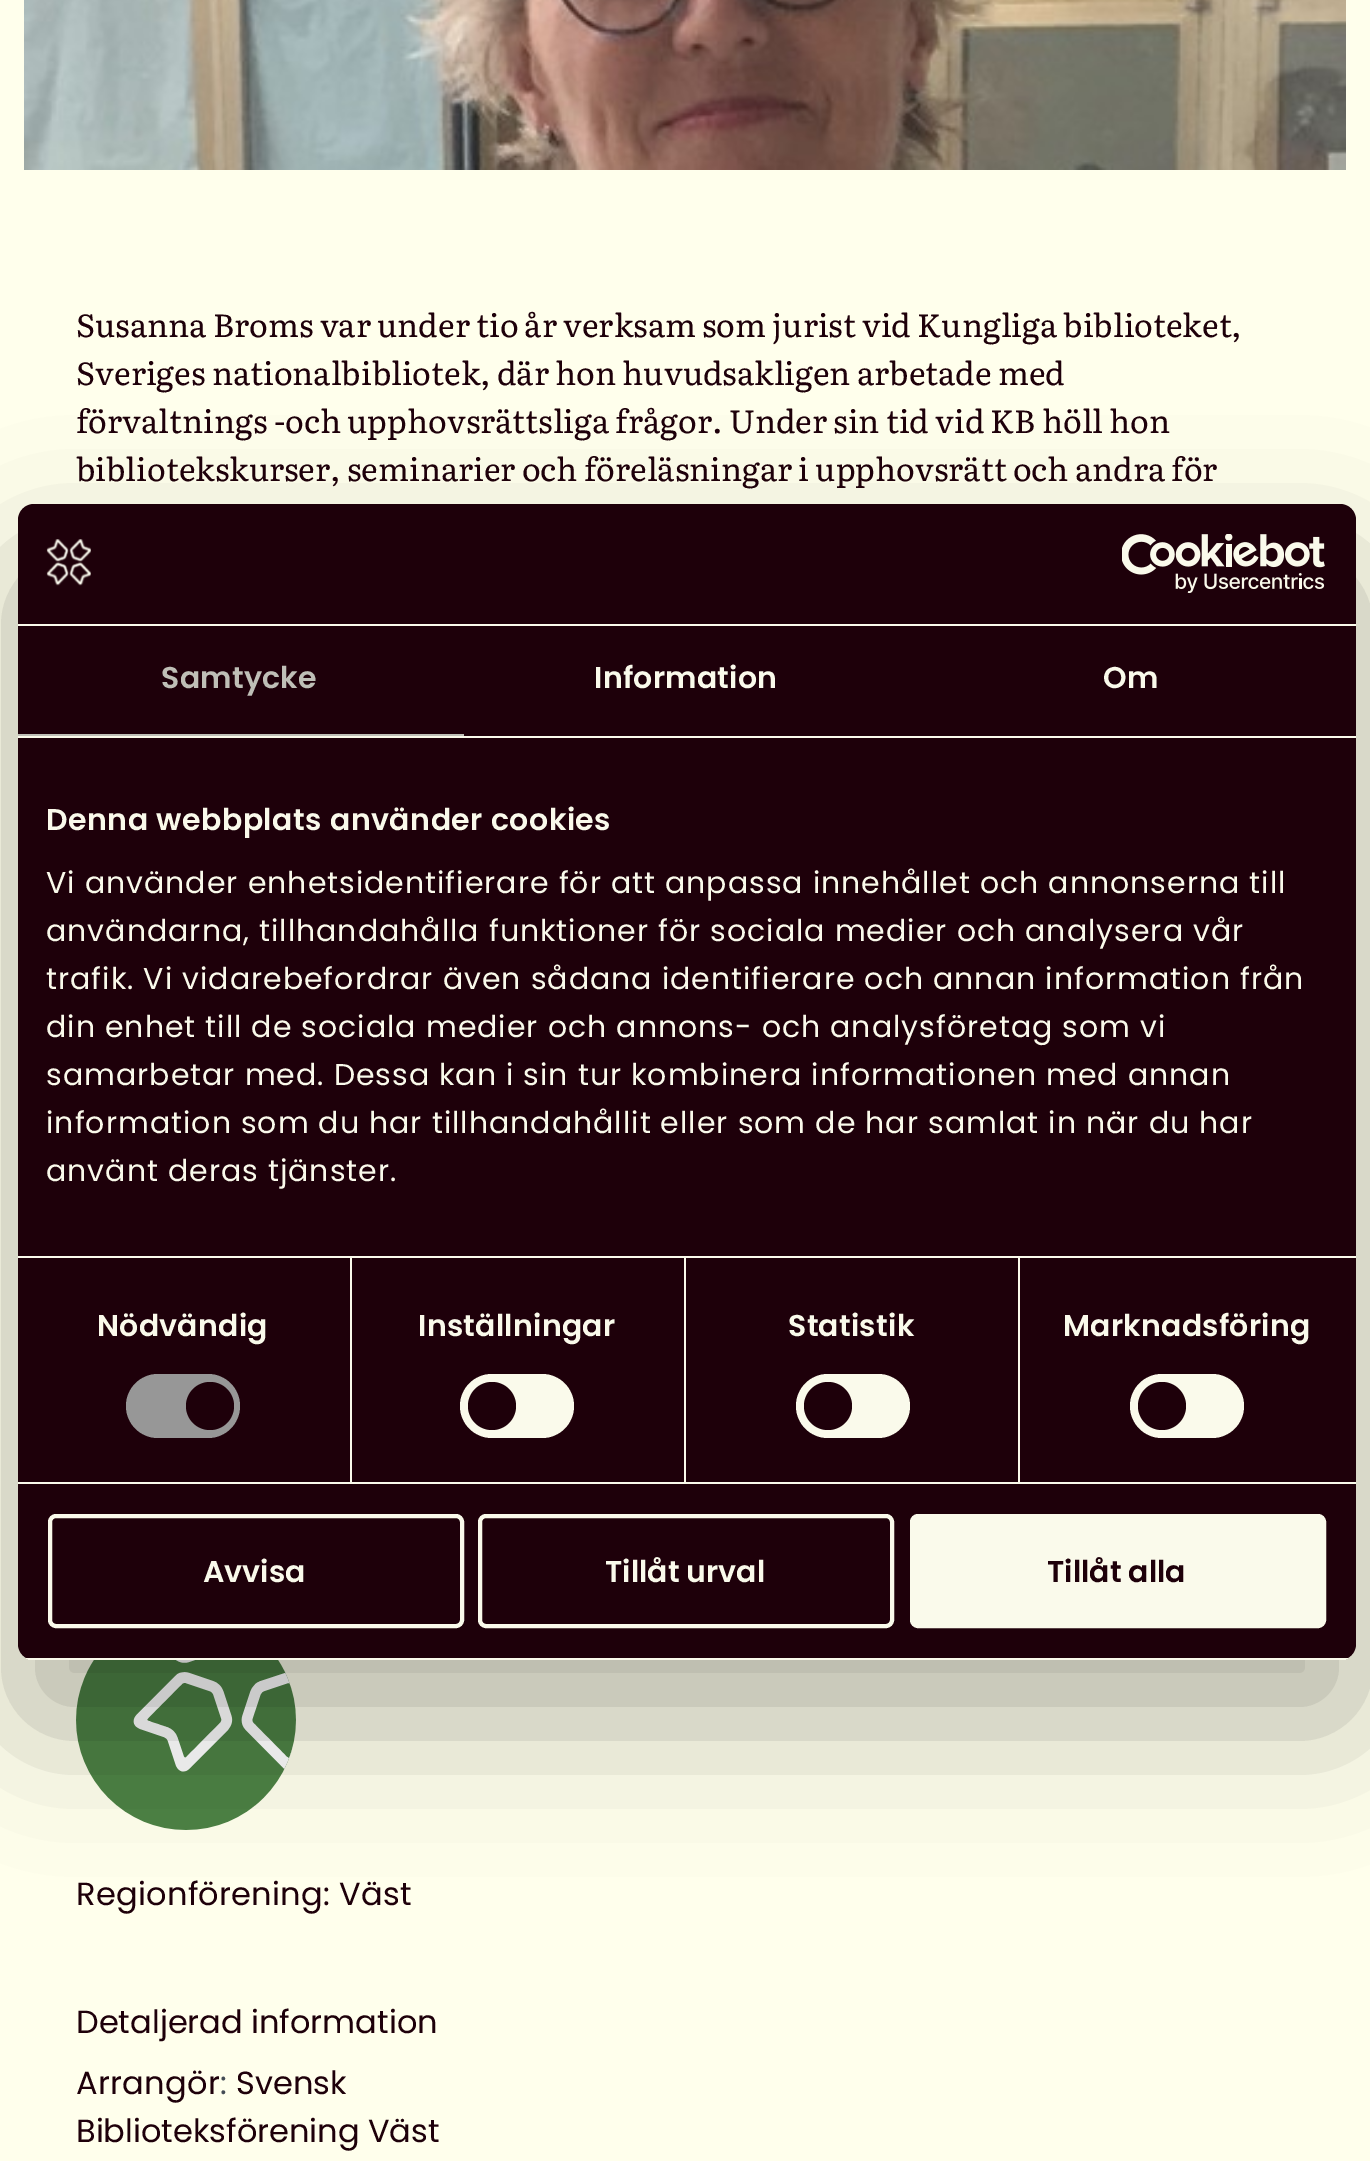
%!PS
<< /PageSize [1370 2161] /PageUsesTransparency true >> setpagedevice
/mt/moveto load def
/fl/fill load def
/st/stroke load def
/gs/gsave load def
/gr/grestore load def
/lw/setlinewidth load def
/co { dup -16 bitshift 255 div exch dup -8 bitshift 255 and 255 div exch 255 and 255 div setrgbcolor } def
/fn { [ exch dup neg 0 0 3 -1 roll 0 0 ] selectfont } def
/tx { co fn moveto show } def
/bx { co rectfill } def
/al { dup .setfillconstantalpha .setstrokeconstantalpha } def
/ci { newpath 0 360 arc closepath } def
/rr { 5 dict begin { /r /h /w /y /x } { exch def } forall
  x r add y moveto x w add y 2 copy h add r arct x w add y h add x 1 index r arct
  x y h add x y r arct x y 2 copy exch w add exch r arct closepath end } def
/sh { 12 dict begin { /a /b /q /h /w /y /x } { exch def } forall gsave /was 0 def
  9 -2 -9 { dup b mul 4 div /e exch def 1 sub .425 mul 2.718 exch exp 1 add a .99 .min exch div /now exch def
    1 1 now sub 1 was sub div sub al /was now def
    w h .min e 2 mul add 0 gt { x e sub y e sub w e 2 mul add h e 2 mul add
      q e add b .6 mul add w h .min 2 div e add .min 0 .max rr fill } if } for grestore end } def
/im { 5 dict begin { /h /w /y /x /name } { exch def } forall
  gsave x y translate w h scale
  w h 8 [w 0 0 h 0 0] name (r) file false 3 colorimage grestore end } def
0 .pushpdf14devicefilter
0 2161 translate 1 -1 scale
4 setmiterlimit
0 0 1370 2161 16#FFFFEC bx
(media/1.raw) 24 0 1322 170 im
(media/2.raw) 76 1660 220 170 im
16#000000 co
18 568 1338 1156 16 68 .3 sh
16#1E000A co
18 504 1338 1156 16 rr fl
18 624 1338 2 16#FAFAEB bx
(media/3.raw) 46 539 45 47 im
(media/4.raw) 1122 534 203 60 im
18 736 1338 2 16#FAFAEB bx
18 734 446 2 16#BFBFB7 bx
18 1256 1338 2 16#FAFAEB bx
18 1482 1338 2 16#FAFAEB bx
350 1258 2 224 16#FAFAEB bx
16#979797 co
126 1374 114 64 32 rr fl
16#1E000A co
210 1406 24 ci fl
684 1258 2 224 16#FAFAEB bx
460 1374 114 64 32 rr fl
16#1E000A co
492 1406 24 ci fl
1018 1258 2 224 16#FAFAEB bx
796 1374 114 64 32 rr fl
16#1E000A co
828 1406 24 ci fl
16#FAFAEB co
1130 1374 114 64 32 rr fl
16#1E000A co
1162 1406 24 ci fl
gs
18 504 1338 1156 16 rr clip newpath
18 1658 1338 2 16#FAFAEB bx
gr
16#FAFAEB co
4 lw
50 1516 412 110 6 rr st
480 1516 412 110 6 rr st
912 1516 412 110 6 rr gs fl gr
st
/Literata-Regular 32 fn
16#1E000A co
76 337 mt -.25 0 32 (Susanna Broms var under tio år verksam som jurist vid Kungliga biblioteket,) widthshow
76 385 mt -.25 0 32 (Sveriges nationalbibliotek, där hon huvudsakligen arbetade med) widthshow
76 433 mt -.25 0 32 (förvaltnings -och upphovsrättsliga frågor. Under sin tid vid KB höll hon) widthshow
76 481 mt -.25 0 32 (bibliotekskurser, seminarier och föreläsningar i upphovsrätt och andra för) widthshow
/Poppins-Regular 32 fn
76 1905 mt .3 0 (Regionförening: Väst) ashow
(Detaljerad information) 76 2033 /Poppins-Regular 32 16#1E000A tx
76 2094 mt .3 0 (Arrangör) ashow
16#444C55 co
220 2094 mt .3 0 (:) ashow
(Svensk) 236 2094 /Poppins-Regular 32 16#1E000A tx
(Biblioteksförening Väst) 76 2142 /Poppins-Regular 32 16#1E000A tx
/Poppins-SemiBold 30 fn
16#BFBFB7 co
161 688 mt .25 0 (Samtycke) ashow
16#FAFAEB co
594 688 mt .25 0 (Information) ashow
1103 688 mt .25 0 (Om) ashow
46 830 mt .5 0 (Denna webbplats använder cookies) ashow
/Poppins-Regular 30 fn
46 893 mt 1 0 (Vi använder enhetsidentifierare för att anpassa innehållet och annonserna till) ashow
46 941 mt 1 0 (användarna, tillhandahålla funktioner för sociala medier och analysera vår) ashow
46 989 mt 1 0 (trafik. Vi vidarebefordrar även sådana identifierare och annan information från) ashow
46 1037 mt 1 0 (din enhet till de sociala medier och annons- och analysföretag som vi) ashow
46 1085 mt 1 0 (samarbetar med. Dessa kan i sin tur kombinera informationen med annan) ashow
46 1133 mt 1 0 (information som du har tillhandahållit eller som de har samlat in när du har) ashow
46 1181 mt 1 0 (använt deras tjänster.) ashow
/Poppins-SemiBold 30 fn
97 1336 mt .25 0 (Nödvändig) ashow
418 1336 mt .25 0 (Inställningar) ashow
788 1336 mt .25 0 (Statistik) ashow
1063 1336 mt .25 0 (Marknadsföring) ashow
(Avvisa) 203 1582 /Poppins-SemiBold 30 16#FAFAEB tx
(Tillåt urval) 605 1582 /Poppins-SemiBold 30 16#FAFAEB tx
(Tillåt alla) 1047 1582 /Poppins-SemiBold 30 16#1E000A tx
.poppdf14devicefilter showpage
